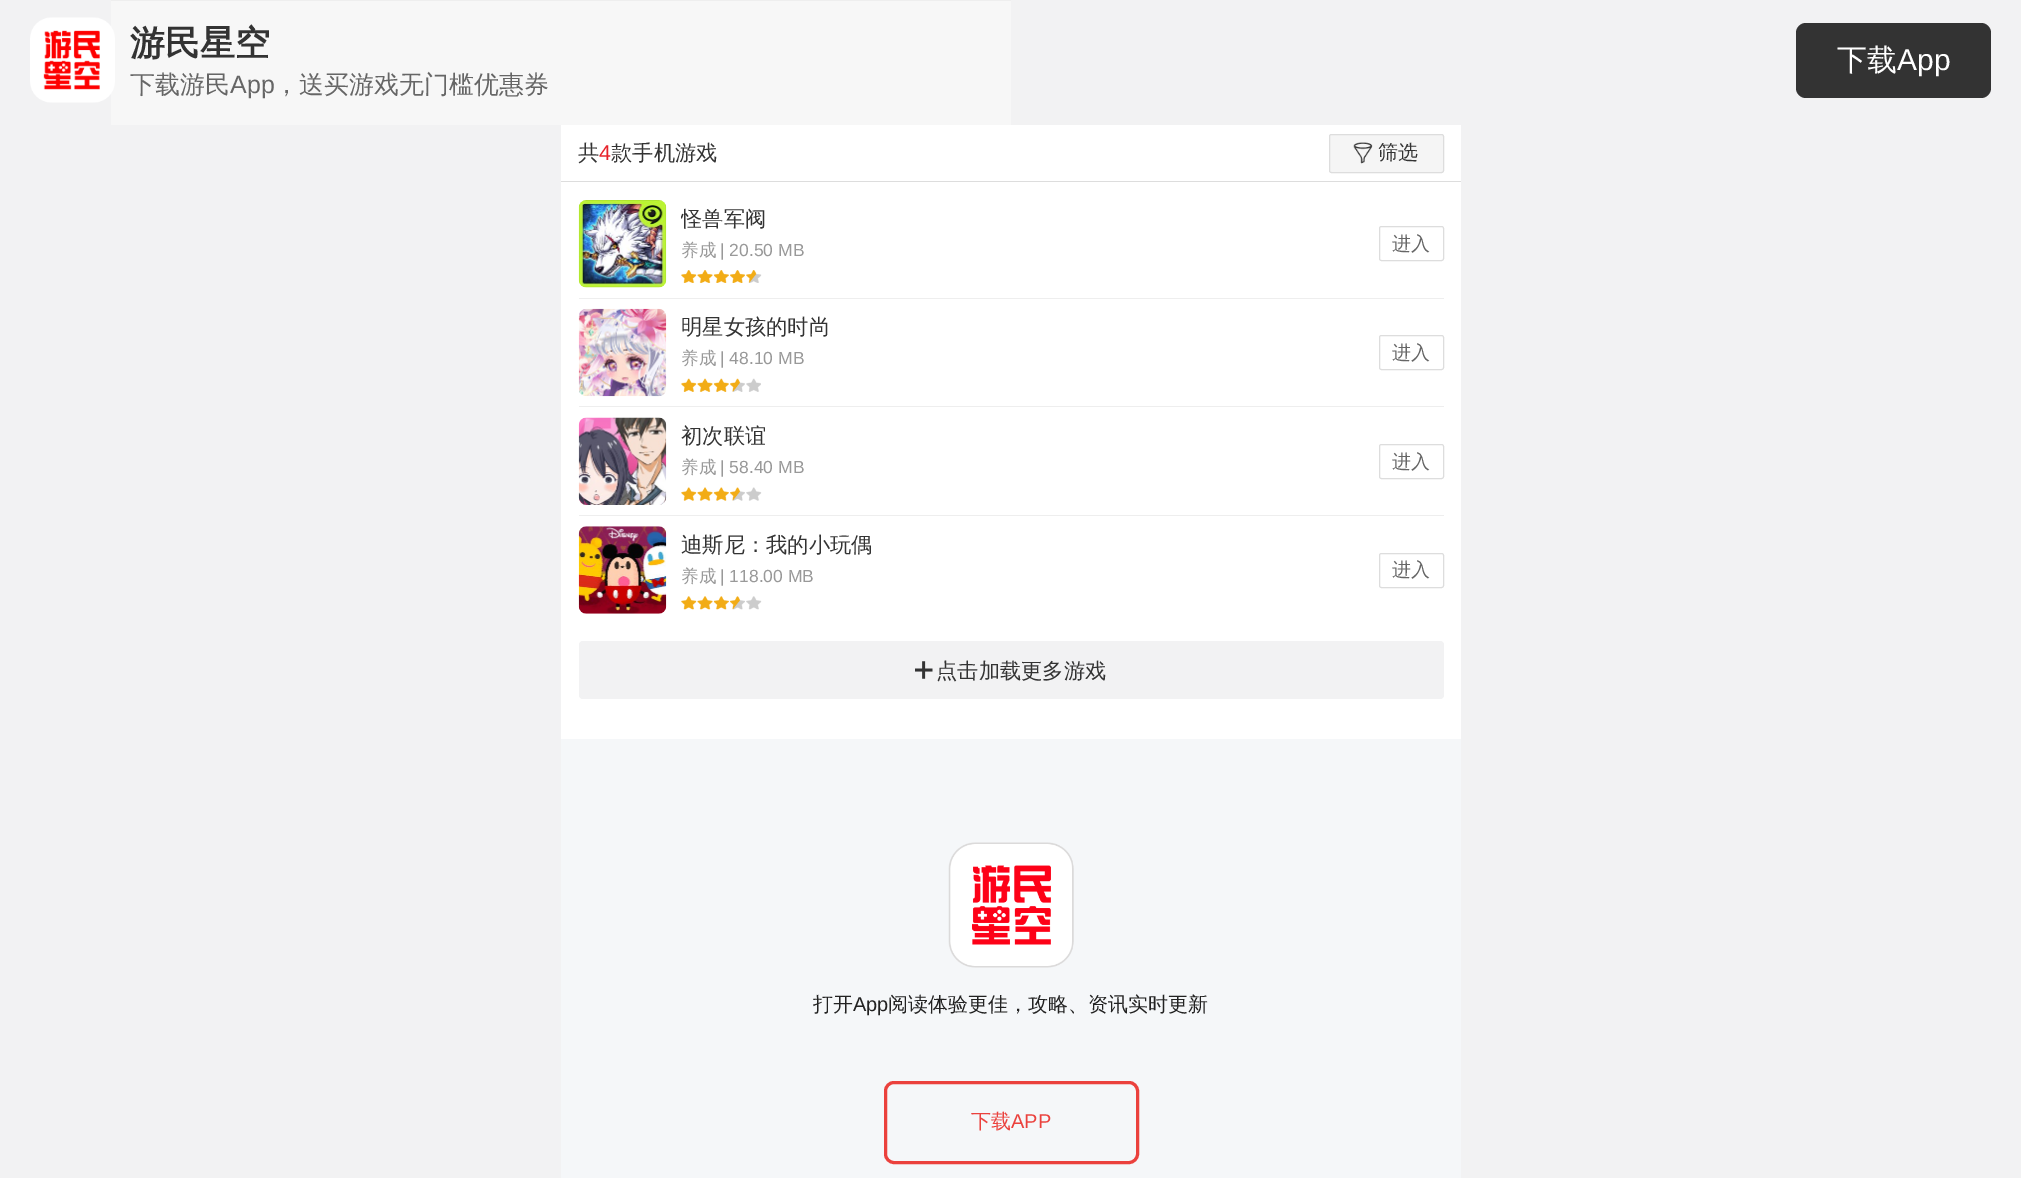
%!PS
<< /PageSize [2021 1178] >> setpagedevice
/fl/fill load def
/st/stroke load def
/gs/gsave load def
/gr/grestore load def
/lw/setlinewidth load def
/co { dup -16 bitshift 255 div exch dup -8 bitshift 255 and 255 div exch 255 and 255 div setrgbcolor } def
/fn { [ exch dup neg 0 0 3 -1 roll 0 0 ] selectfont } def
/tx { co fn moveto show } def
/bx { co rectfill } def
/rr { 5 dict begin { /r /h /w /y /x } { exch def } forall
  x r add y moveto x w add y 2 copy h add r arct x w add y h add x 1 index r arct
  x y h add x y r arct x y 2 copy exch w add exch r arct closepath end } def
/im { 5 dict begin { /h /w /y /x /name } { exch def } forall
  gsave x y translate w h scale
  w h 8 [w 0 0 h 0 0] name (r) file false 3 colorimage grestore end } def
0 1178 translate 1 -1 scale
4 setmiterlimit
0 0 2021 1178 16#F2F2F3 bx
111 1 900 124 16#F7F7F7 bx
111 0 900 1 16#EEEEEE bx
(media/1.raw) 30 17 85 86 im
16#333333 co
1796 23 195 75 10 rr fl
561 125 900 614 16#FFFFFF bx
561 181 900 1 16#DDDDDD bx
16#F5F5F5 co
1329.5 134.5 114 38 2 rr gs fl gr
16#DDDDDD co
st
(media/2.raw) 1353 142 20 22 im
(media/3.raw) 578 200 89 88 im
(media/4.raw) 681 270 81 13 im
1379.5 226.5 64 34 2 rr st
579 298 865 1 16#EEEEEE bx
(media/5.raw) 578 308 89 89 im
(media/6.raw) 681 378 80 14 im
16#DDDDDD co
1379.5 335.5 64 34 2 rr st
579 406 865 1 16#EEEEEE bx
(media/7.raw) 578 417 89 88 im
(media/8.raw) 681 487 81 14 im
16#DDDDDD co
1379.5 444.5 64 34 2 rr st
579 515 865 1 16#EEEEEE bx
(media/9.raw) 578 526 89 88 im
(media/10.raw) 681 596 81 14 im
16#DDDDDD co
1379.5 553.5 64 34 2 rr st
16#F2F2F3 co
579 641 865 58 4 rr fl
(media/11.raw) 915 661 18 18 im
561 739 900 439 16#F5F7F9 bx
(media/12.raw) 948 842 126 126 im
16#EB413D co
3 lw
885.5 1082.5 252 80 8.5 rr st
(游民星空) 130 55 /WenQuanYiZenHei-Bold 35 16#333333 tx
(下载游民) 130 93 /WenQuanYiZenHei-Medium 25 16#666666 tx
(App) 230 93 /LiberationSans-Regular 25 16#666666 tx
(，送买游戏无门槛优惠券) 274 93 /WenQuanYiZenHei-Medium 25 16#666666 tx
(下载) 1837 70 /WenQuanYiZenHei-Medium 30 16#FFFFFF tx
(App) 1897 70 /LiberationSans-Regular 30 16#FFFFFF tx
(共) 578 160 /WenQuanYiZenHei-Medium 21.25 16#333333 tx
(4) 599 160 /LiberationSans-Regular 21.25 16#E7222A tx
(款手机游戏) 611 160 /WenQuanYiZenHei-Medium 21.25 16#333333 tx
(筛选) 1378 159 /WenQuanYiZenHei-Medium 20 16#333333 tx
gs
681 205 683 30 rectclip
(怪兽军阀) 681 226 /WenQuanYiZenHei-Medium 21.25 16#333333 tx
gr
(养成) 681 256 /WenQuanYiZenHei-Medium 17.5 16#999999 tx
(| 20.50 MB) 720 256 /LiberationSans-Regular 17.5 16#999999 tx
(进入) 1392 250 /WenQuanYiZenHei-Medium 19 16#666666 tx
(明星女孩的时尚) 681 334 /WenQuanYiZenHei-Medium 21.25 16#333333 tx
(养成) 681 364 /WenQuanYiZenHei-Medium 17.5 16#999999 tx
(| 48.10 MB) 720 364 /LiberationSans-Regular 17.5 16#999999 tx
(进入) 1392 359 /WenQuanYiZenHei-Medium 19 16#666666 tx
(初次联谊) 681 443 /WenQuanYiZenHei-Medium 21.25 16#333333 tx
(养成) 681 473 /WenQuanYiZenHei-Medium 17.5 16#999999 tx
(| 58.40 MB) 720 473 /LiberationSans-Regular 17.5 16#999999 tx
(进入) 1392 468 /WenQuanYiZenHei-Medium 19 16#666666 tx
(迪斯尼：我的小玩偶) 681 552 /WenQuanYiZenHei-Medium 21.25 16#333333 tx
(养成) 681 582 /WenQuanYiZenHei-Medium 17.5 16#999999 tx
(| 118.00 MB) 720 582 /LiberationSans-Regular 17.5 16#999999 tx
(进入) 1392 576 /WenQuanYiZenHei-Medium 19 16#666666 tx
(点击加载更多游戏) 936 678 /WenQuanYiZenHei-Medium 21.25 16#333333 tx
(打开) 813 1011 /WenQuanYiZenHei-Medium 20 16#222222 tx
(App) 853 1011 /LiberationSans-Regular 20 16#222222 tx
(阅读体验更佳，攻略、资讯实时更新) 888 1011 /WenQuanYiZenHei-Medium 20 16#222222 tx
(下载) 971 1128 /WenQuanYiZenHei-Medium 20 16#EB413D tx
(APP) 1011 1128 /LiberationSans-Regular 20 16#EB413D tx
showpage
